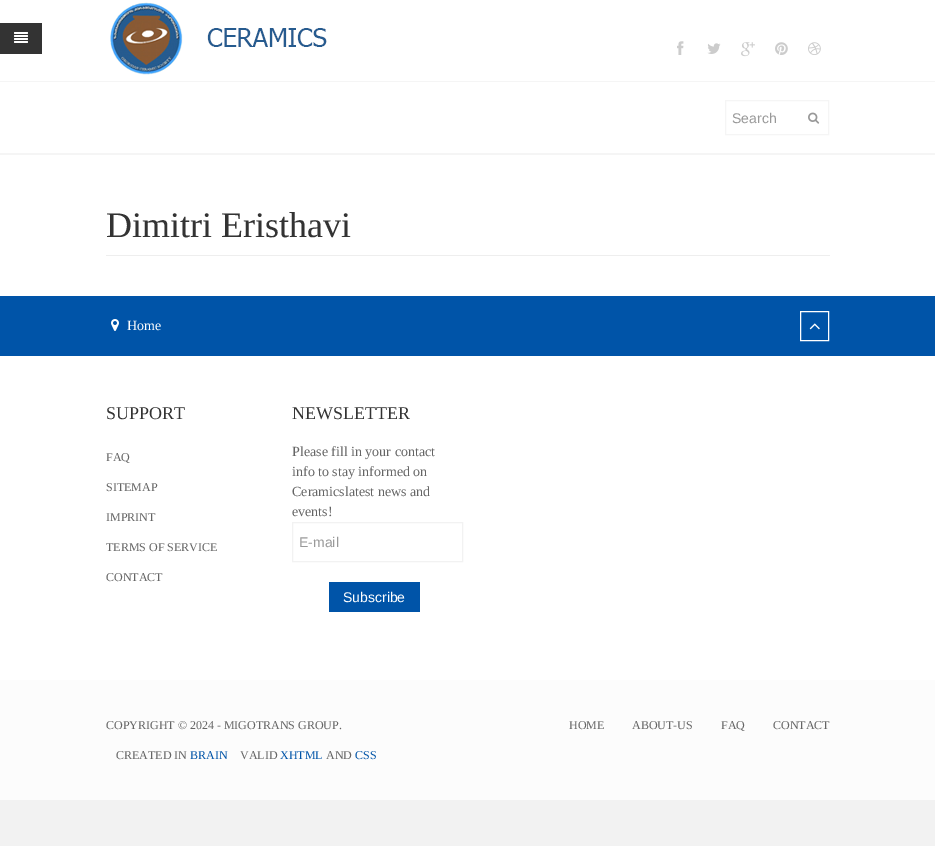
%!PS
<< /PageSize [935 846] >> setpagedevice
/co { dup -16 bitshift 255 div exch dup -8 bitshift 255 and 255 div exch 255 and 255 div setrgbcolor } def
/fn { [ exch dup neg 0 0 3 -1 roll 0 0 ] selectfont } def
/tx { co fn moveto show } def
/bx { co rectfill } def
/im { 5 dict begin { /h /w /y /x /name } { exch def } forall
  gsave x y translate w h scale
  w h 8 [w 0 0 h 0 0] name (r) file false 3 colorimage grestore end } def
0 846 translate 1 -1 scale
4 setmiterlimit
0 0 935 846 16#F2F2F2 bx
0 0 935 680 16#FFFFFF bx
0 81 935 1 16#F5F5F5 bx
(media/1.raw) 110 2 217 73 im
(media/2.raw) 677 41 7 14 im
(media/3.raw) 707 43 14 11 im
(media/4.raw) 741 42 14 15 im
(media/5.raw) 775 42 13 13 im
(media/6.raw) 808 42 13 13 im
0 23 42 31 16#333333 bx
(media/7.raw) 14 32 14 11 im
0 153 935 2 16#F5F5F5 bx
725.5 100.5 103 34 rectstroke
(media/8.raw) 808 112 12 12 im
106 255 724 1 16#EEEEEE bx
0 296 935 60 16#0054A8 bx
(media/9.raw) 111 319 8 12 im
16#FFFFFF co
800.5 311.5 28 29 rectstroke
(media/10.raw) 809 323 11 7 im
16#F2F2F2 co
292.5 522.5 170 39 rectstroke
329 582 91 30 16#0054A8 bx
0 680 935 120 16#FCFCFC bx
(Search) 732 123 /LiberationSans-Regular 14 16#999999 tx
(Dimitri Eristhavi) 106 237 /LiberationSerif-Regular 36 16#333333 tx
(Home) 127 330 /LiberationSerif-Regular 14 16#FFFFFF tx
(SUPPORT) 106 419 /LiberationSerif-Regular 18 16#333333 tx
(FAQ) 106 461 /LiberationSerif-Regular 12 16#656565 tx
(SITEMAP) 106 491 /LiberationSerif-Regular 12 16#656565 tx
(IMPRINT) 106 521 /LiberationSerif-Regular 12 16#656565 tx
(TERMS OF SERVICE) 106 551 /LiberationSerif-Regular 12 16#656565 tx
(CONTACT) 106 581 /LiberationSerif-Regular 12 16#656565 tx
(NEWSLETTER) 292 419 /LiberationSerif-Regular 18 16#333333 tx
(Please fill in your contact) 292 456 /LiberationSerif-Regular 14 16#656565 tx
(info to stay informed on) 292 476 /LiberationSerif-Regular 14 16#656565 tx
(Ceramicslatest news and) 292 496 /LiberationSerif-Regular 14 16#656565 tx
(events!) 292 516 /LiberationSerif-Regular 14 16#656565 tx
(E-mail) 299 547 /LiberationSans-Regular 14 16#999999 tx
(Subscribe) 343 602 /LiberationSans-Regular 14 16#FFFFFF tx
(COPYRIGHT © 2024 - MIGOTRANS GROUP.) 106 729 /LiberationSerif-Regular 12 16#656565 tx
(CREATED IN) 116 759 /LiberationSerif-Regular 12 16#656565 tx
(BRAIN) 190 759 /LiberationSerif-Regular 12 16#0054A8 tx
(VALID) 240 759 /LiberationSerif-Regular 12 16#656565 tx
(XHTML) 280 759 /LiberationSerif-Regular 12 16#0054A8 tx
(AND) 326 759 /LiberationSerif-Regular 12 16#656565 tx
(CSS) 355 759 /LiberationSerif-Regular 12 16#0054A8 tx
(HOME) 569 729 /LiberationSerif-Regular 12 16#656565 tx
(ABOUT-US) 632 729 /LiberationSerif-Regular 12 16#656565 tx
(FAQ) 721 729 /LiberationSerif-Regular 12 16#656565 tx
(CONTACT) 773 729 /LiberationSerif-Regular 12 16#656565 tx
showpage
